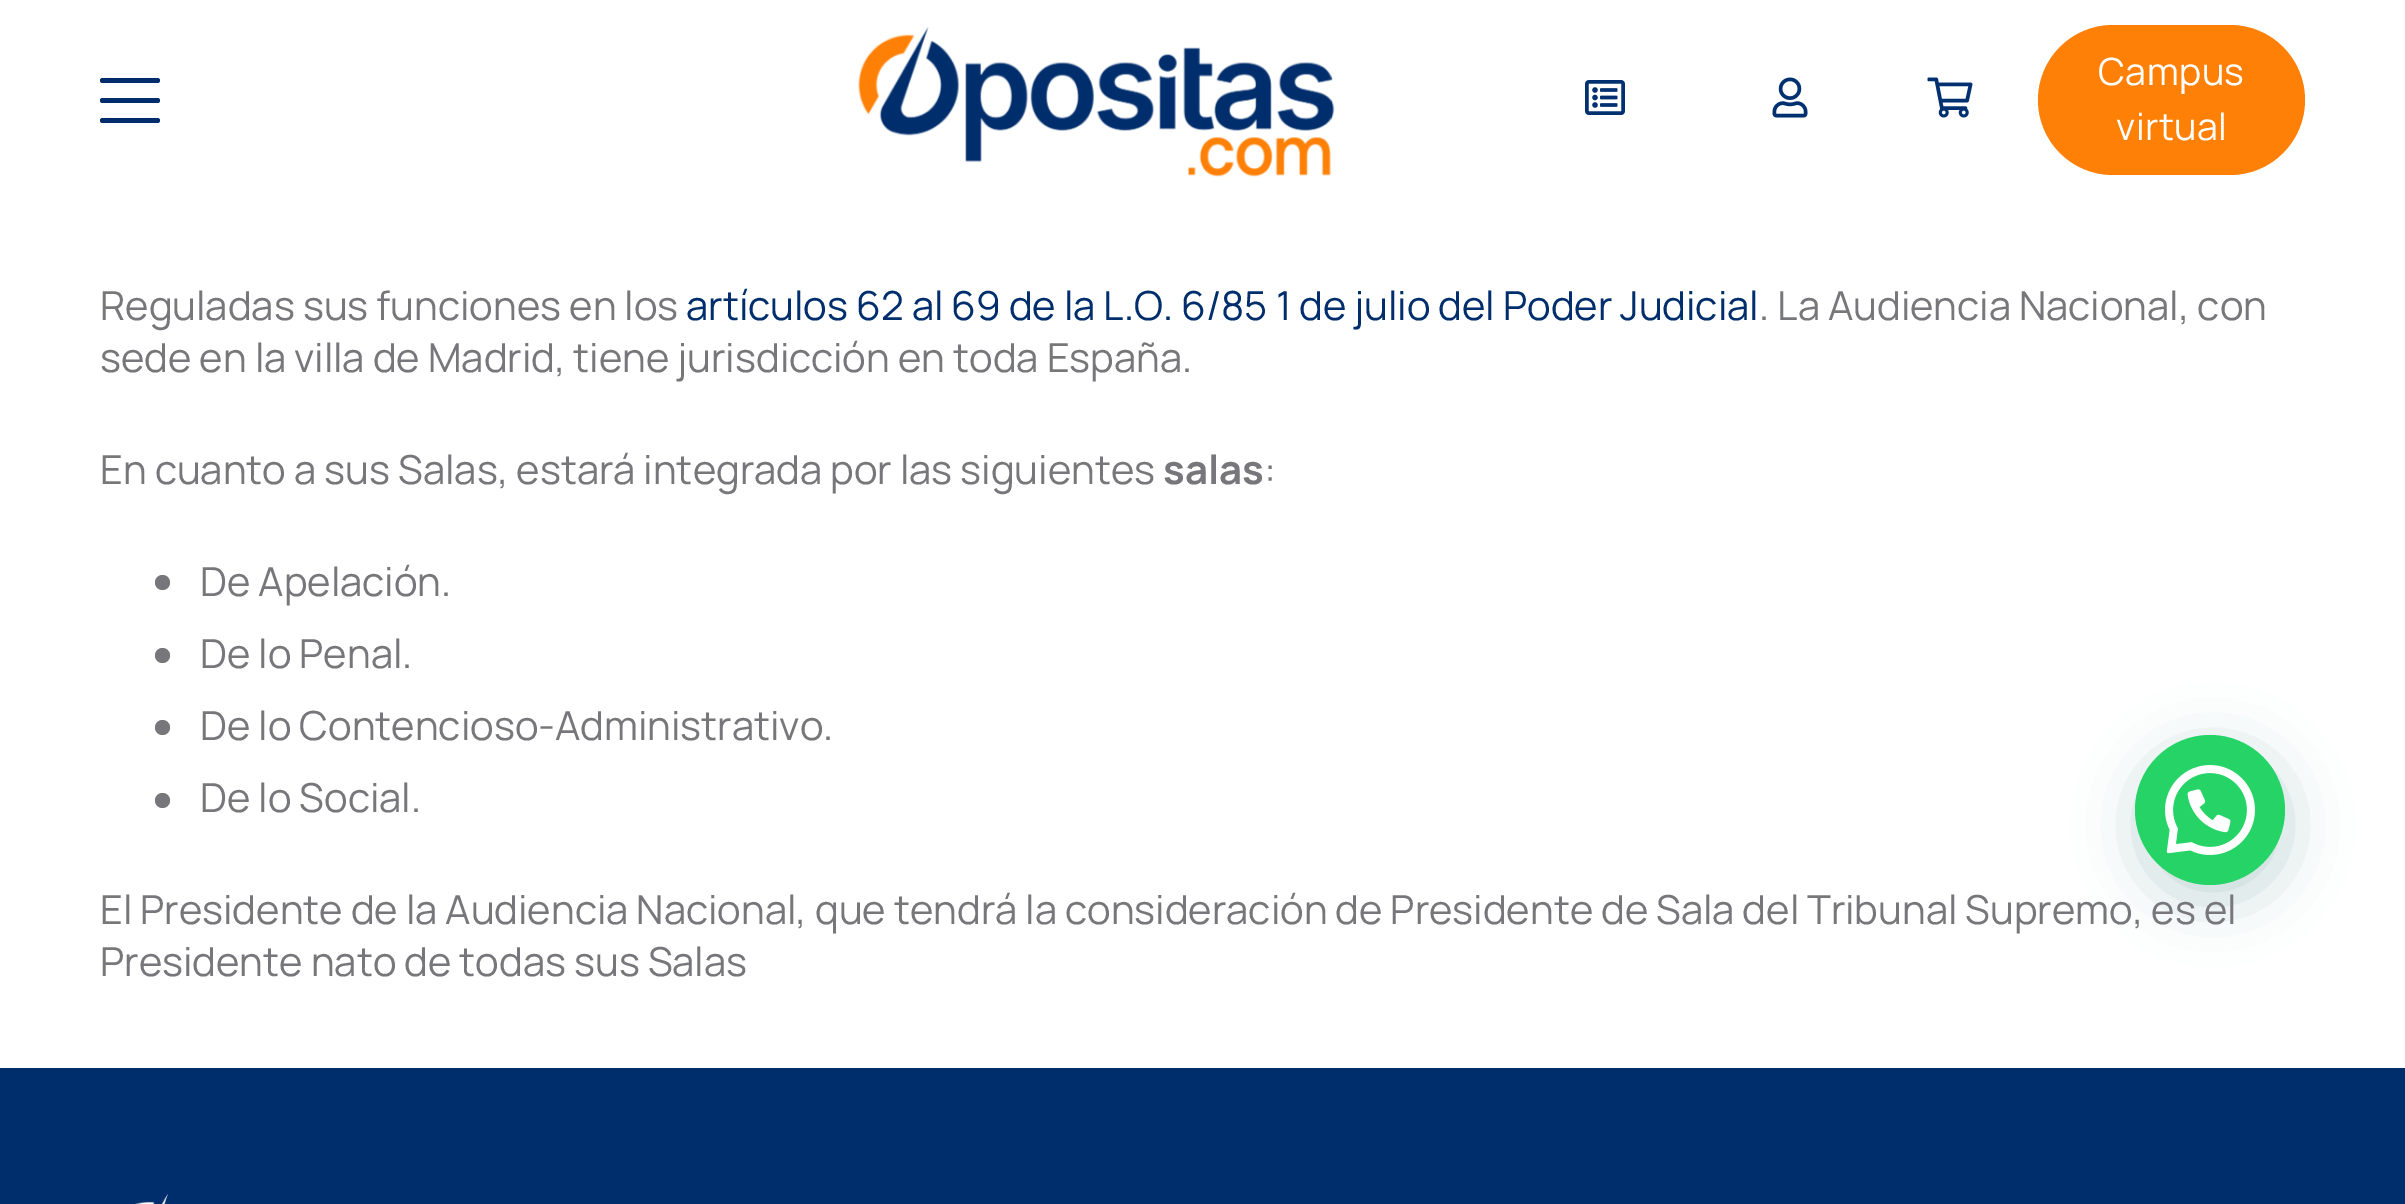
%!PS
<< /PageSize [2405 1204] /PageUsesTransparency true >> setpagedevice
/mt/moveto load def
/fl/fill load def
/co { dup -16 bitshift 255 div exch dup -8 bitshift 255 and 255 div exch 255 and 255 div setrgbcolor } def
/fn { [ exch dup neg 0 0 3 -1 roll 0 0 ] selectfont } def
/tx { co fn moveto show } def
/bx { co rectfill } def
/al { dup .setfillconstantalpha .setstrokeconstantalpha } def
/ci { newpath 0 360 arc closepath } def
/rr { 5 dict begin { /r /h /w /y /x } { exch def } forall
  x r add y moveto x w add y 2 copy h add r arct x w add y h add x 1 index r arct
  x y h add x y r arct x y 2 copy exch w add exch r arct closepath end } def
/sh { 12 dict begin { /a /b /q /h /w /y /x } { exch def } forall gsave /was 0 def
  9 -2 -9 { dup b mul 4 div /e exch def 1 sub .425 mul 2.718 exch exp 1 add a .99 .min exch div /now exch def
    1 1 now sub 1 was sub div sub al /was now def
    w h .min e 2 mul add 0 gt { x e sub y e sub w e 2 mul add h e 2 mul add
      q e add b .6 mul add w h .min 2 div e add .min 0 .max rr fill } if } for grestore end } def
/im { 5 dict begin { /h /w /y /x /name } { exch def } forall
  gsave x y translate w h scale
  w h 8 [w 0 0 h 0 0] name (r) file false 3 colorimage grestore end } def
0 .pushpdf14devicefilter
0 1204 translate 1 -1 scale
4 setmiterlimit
0 0 2405 1204 16#FFFFFF bx
16#002E6C co
100 98 60 5 2.5 rr fl
100 78 60 5 2.5 rr fl
100 118 60 5 2.5 rr fl
(media/1.raw) 858 27 477 150 im
(media/2.raw) 1585 80 40 35 im
(media/3.raw) 1772 77 36 41 im
(media/4.raw) 1927 77 46 41 im
16#FF8006 co
2038 25 267 150 75 rr fl
16#77777B co
162.5 582.5 7.5 ci fl
162.5 655.5 7.5 ci fl
162.5 727.5 7.5 ci fl
162.5 800.5 7.5 ci fl
16#075E54 co
2138 750 150 150 75 30 .24 sh
16#25D366 co
2210 810 75 ci fl
(media/5.raw) 2165 765 90 90 im
0 1068 2405 136 16#002E6C bx
(media/6.raw) 135 1194 33 10 im
/Manrope-ExtraLight 37.5 fn
16#FFFFFF co
2098 85 mt .5 0 (Campus) ashow
2116 140 mt .5 0 (virtual) ashow
(Reguladas sus funciones en los) 100 320 /Manrope-ExtraLight 40 16#77777B tx
(artículos 62 al 69 de la L.O. 6/85 1 de julio del Poder Judicial) 686 320 /Manrope-ExtraLight 40 16#002E6C tx
(. La Audiencia Nacional, con) 1759 320 /Manrope-ExtraLight 40 16#77777B tx
(sede en la villa de Madrid, tiene jurisdicción en toda España.) 100 372 /Manrope-ExtraLight 40 16#77777B tx
(En cuanto a sus Salas, estará integrada por las siguientes) 100 484 /Manrope-ExtraLight 40 16#77777B tx
(salas) 1163 484 /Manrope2-ExtraLight 40 16#77777B tx
(:) 1264 484 /Manrope-ExtraLight 40 16#77777B tx
(De Apelación.) 200 596 /Manrope-ExtraLight 40 16#77777B tx
(De lo Penal.) 200 668 /Manrope-ExtraLight 40 16#77777B tx
(De lo Contencioso-Administrativo.) 200 740 /Manrope-ExtraLight 40 16#77777B tx
(De lo Social.) 200 812 /Manrope-ExtraLight 40 16#77777B tx
(El Presidente de la Audiencia Nacional, que tendrá la consideración de Presidente de Sala del Tribunal Supremo, es el) 100 924 /Manrope-ExtraLight 40 16#77777B tx
(Presidente nato de todas sus Salas) 100 976 /Manrope-ExtraLight 40 16#77777B tx
.poppdf14devicefilter showpage
